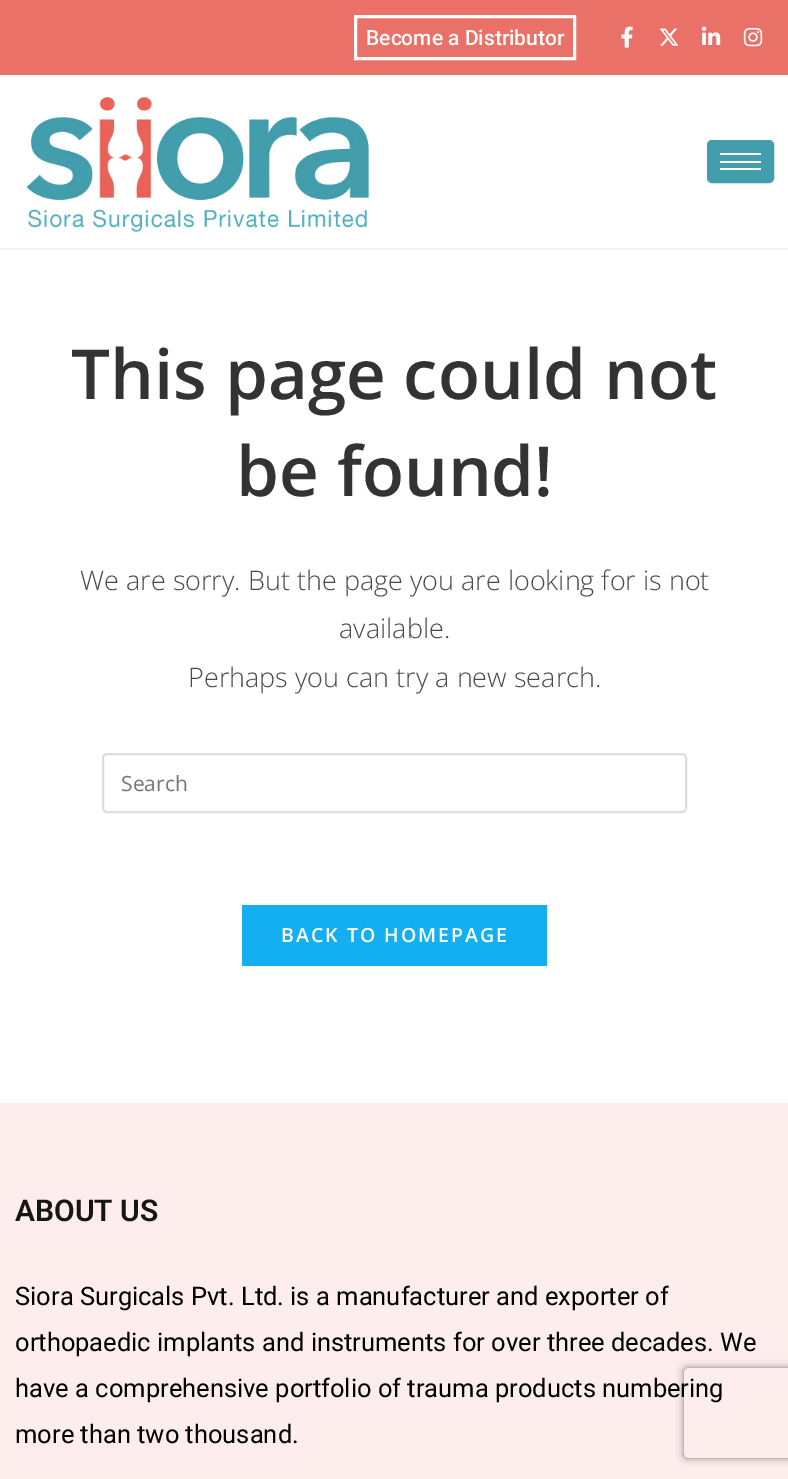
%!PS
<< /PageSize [788 1479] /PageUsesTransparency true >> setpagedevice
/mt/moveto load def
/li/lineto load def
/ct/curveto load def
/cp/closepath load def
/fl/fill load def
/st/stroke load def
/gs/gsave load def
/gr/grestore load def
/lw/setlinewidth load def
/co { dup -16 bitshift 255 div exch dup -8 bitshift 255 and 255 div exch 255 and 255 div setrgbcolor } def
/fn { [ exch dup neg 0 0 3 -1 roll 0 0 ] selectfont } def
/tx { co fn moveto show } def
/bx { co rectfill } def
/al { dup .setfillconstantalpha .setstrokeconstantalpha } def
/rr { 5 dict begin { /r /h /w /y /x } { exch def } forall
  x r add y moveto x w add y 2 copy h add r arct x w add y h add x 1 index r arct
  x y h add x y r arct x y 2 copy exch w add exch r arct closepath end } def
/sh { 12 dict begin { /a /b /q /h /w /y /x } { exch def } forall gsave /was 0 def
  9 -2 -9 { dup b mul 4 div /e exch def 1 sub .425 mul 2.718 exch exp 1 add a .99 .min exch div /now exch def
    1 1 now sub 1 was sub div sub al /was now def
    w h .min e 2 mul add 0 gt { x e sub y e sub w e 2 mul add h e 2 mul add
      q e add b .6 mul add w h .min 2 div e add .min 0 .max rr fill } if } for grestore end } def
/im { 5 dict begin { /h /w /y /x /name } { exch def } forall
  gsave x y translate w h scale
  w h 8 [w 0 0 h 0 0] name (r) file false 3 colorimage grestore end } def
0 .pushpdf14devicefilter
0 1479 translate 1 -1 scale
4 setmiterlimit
0 0 788 1479 16#FFFFFF bx
0 248 788 2 16#F1F1F1 bx
0 0 788 75 16#EA7168 bx
16#FFFFFF co
3 lw
355.5 16.5 219 42 rectstroke
(media/1.raw) 621 26 12 22 im
(media/2.raw) 659 28 20 18 im
(media/3.raw) 701 26 20 19 im
(media/4.raw) 743 27 20 20 im
(media/5.raw) 26 97 343 135 im
16#429DAD co
708 141 65 41 4 rr gs fl gr
2 lw
st
720 153 41 2 16#FFFFFF bx
720 161 41 2 16#FFFFFF bx
720 168 41 2 16#FFFFFF bx
16#DDDDDD co
103 754 583 58 4 rr st
242 905 305 61 16#13AFF0 bx
0 1103 788 376 16#FDEDEC bx
gs
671 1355 mt 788 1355 li 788 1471 li 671 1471 li cp 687 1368 mt 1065 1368 li 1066.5 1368 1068 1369.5 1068 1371 ct 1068 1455 li 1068 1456.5 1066.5 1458 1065 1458 ct 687 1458 li 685.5 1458 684 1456.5 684 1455 ct 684 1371 li 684 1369.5 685.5 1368 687 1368 ct cp eoclip newpath
16#808080 co
684 1368 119 90 3 4 1 sh
gr
(Become a Distributor) 366 45 /Roboto-Medium 21 16#FFFFFF tx
(This page could not) 71 399 /OpenSans-SemiBold 69 16#333333 tx
(be found!) 236 496 /OpenSans-SemiBold 69 16#333333 tx
(We are sorry. But the page you are looking for is not) 80 590 /OpenSans-Light 27 16#4A4A4A tx
(available.) 339 638 /OpenSans-Light 27 16#4A4A4A tx
(Perhaps you can try a new search.) 188 687 /OpenSans-Light 27 16#4A4A4A tx
(Search) 121 791 /OpenSans-Regular 21 16#757575 tx
/OpenSans-SemiBold 19.5 fn
16#FFFFFF co
281 942 mt 2 0 (BACK TO HOMEPAGE) ashow
(ABOUT US) 15 1221 /Roboto-SemiBold 30 16#161616 tx
(Siora Surgicals Pvt. Ltd. is a manufacturer and exporter of) 15 1305 /Roboto-Regular 25.5 16#000000 tx
(orthopaedic implants and instruments for over three decades. We) 15 1351 /Roboto-Regular 25.5 16#000000 tx
(have a comprehensive portfolio of trauma products numbering) 15 1397 /Roboto-Regular 25.5 16#000000 tx
(more than two thousand.) 15 1443 /Roboto-Regular 25.5 16#000000 tx
.poppdf14devicefilter showpage
